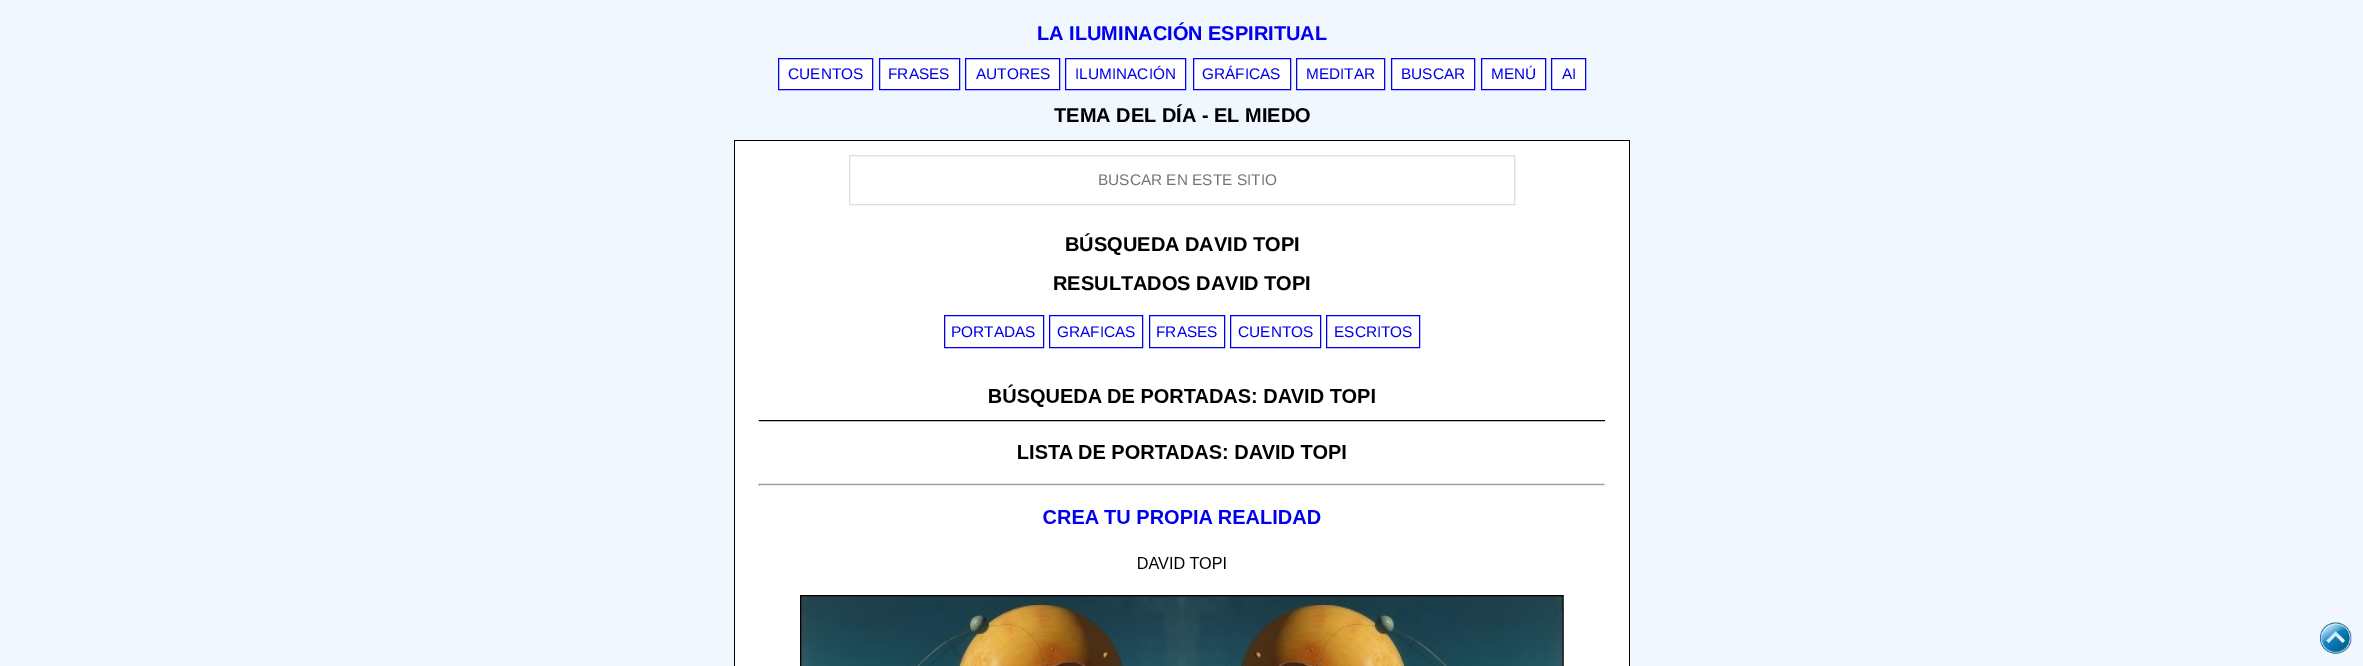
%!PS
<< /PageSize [2363 666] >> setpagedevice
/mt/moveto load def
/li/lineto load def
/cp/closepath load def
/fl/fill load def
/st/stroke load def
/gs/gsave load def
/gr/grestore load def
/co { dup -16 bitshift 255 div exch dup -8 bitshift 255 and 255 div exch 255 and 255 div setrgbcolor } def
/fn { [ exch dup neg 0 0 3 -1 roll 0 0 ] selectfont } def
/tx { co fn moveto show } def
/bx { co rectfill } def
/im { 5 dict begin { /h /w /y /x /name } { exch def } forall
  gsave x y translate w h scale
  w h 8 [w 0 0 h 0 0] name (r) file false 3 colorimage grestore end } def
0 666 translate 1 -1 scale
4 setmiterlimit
0 0 2363 666 16#F0F7FF bx
734 140 896 1 16#000000 bx
16#FFFFFF co
778.5 58.5 mt 872.5 58.5 li 872.5 89.5 li 778.5 89.5 li cp gs fl gr
16#0000EE co
st
16#FFFFFF co
879.5 58.5 mt 959.5 58.5 li 959.5 89.5 li 879.5 89.5 li cp gs fl gr
16#0000EE co
st
16#FFFFFF co
965.5 58.5 mt 1059.5 58.5 li 1059.5 89.5 li 965.5 89.5 li cp gs fl gr
16#0000EE co
st
16#FFFFFF co
1065.5 58.5 mt 1185.5 58.5 li 1185.5 89.5 li 1065.5 89.5 li cp gs fl gr
16#0000EE co
st
16#FFFFFF co
1193.5 58.5 mt 1290.5 58.5 li 1290.5 89.5 li 1193.5 89.5 li cp gs fl gr
16#0000EE co
st
16#FFFFFF co
1296.5 58.5 mt 1384.5 58.5 li 1384.5 89.5 li 1296.5 89.5 li cp gs fl gr
16#0000EE co
st
16#FFFFFF co
1391.5 58.5 mt 1474.5 58.5 li 1474.5 89.5 li 1391.5 89.5 li cp gs fl gr
16#0000EE co
st
16#FFFFFF co
1481.5 58.5 mt 1545.5 58.5 li 1545.5 89.5 li 1481.5 89.5 li cp gs fl gr
16#0000EE co
st
16#FFFFFF co
1551.5 58.5 mt 1585.5 58.5 li 1585.5 89.5 li 1551.5 89.5 li cp gs fl gr
16#0000EE co
st
735 141 894 525 16#FFFFFF bx
1629 141 1 525 16#000000 bx
734 141 1 525 16#000000 bx
16#DDDDDD co
849.5 155.5 665 49 rectstroke
16#0000EE co
944.5 315.5 99 32 rectstroke
1049.5 315.5 93 32 rectstroke
1149.5 315.5 75 32 rectstroke
1230.5 315.5 90 32 rectstroke
1326.5 315.5 93 32 rectstroke
(media/1.raw) 758 384 847 282 im
(media/2.raw) 2320 622 32 32 im
(LA ILUMINACIÓN ESPIRITUAL) 1037 40 /LiberationSans-Bold 20 16#0000EE tx
(CUENTOS) 788 79 /LiberationSans-Regular 15.4 16#0000EE tx
(FRASES) 888 79 /LiberationSans-Regular 15.4 16#0000EE tx
(AUTORES) 976 79 /LiberationSans-Regular 15.4 16#0000EE tx
(ILUMINACIÓN) 1075 79 /LiberationSans-Regular 15.4 16#0000EE tx
(GRÁFICAS) 1202 79 /LiberationSans-Regular 15.4 16#0000EE tx
(MEDITAR) 1306 79 /LiberationSans-Regular 15.4 16#0000EE tx
(BUSCAR) 1401 79 /LiberationSans-Regular 15.4 16#0000EE tx
(MENÚ) 1491 79 /LiberationSans-Regular 15.4 16#0000EE tx
(AI) 1562 79 /LiberationSans-Regular 15.4 16#0000EE tx
(TEMA DEL DÍA - EL MIEDO) 1054 122 /LiberationSans-Bold 20 16#000000 tx
(BUSCAR EN ESTE SITIO) 1098 185 /LiberationSans-Regular 15.4 16#757575 tx
(BÚSQUEDA DAVID TOPI) 1065 251 /LiberationSans-Bold 20 16#000000 tx
(RESULTADOS DAVID TOPI) 1053 290 /LiberationSans-Bold 20 16#000000 tx
(PORTADAS) 951 337 /LiberationSans-Regular 15.4 16#0000EE tx
(GRAFICAS) 1057 337 /LiberationSans-Regular 15.4 16#0000EE tx
(FRASES) 1156 337 /LiberationSans-Regular 15.4 16#0000EE tx
(CUENTOS) 1238 337 /LiberationSans-Regular 15.4 16#0000EE tx
(ESCRITOS) 1334 337 /LiberationSans-Regular 15.4 16#0000EE tx
showpage
